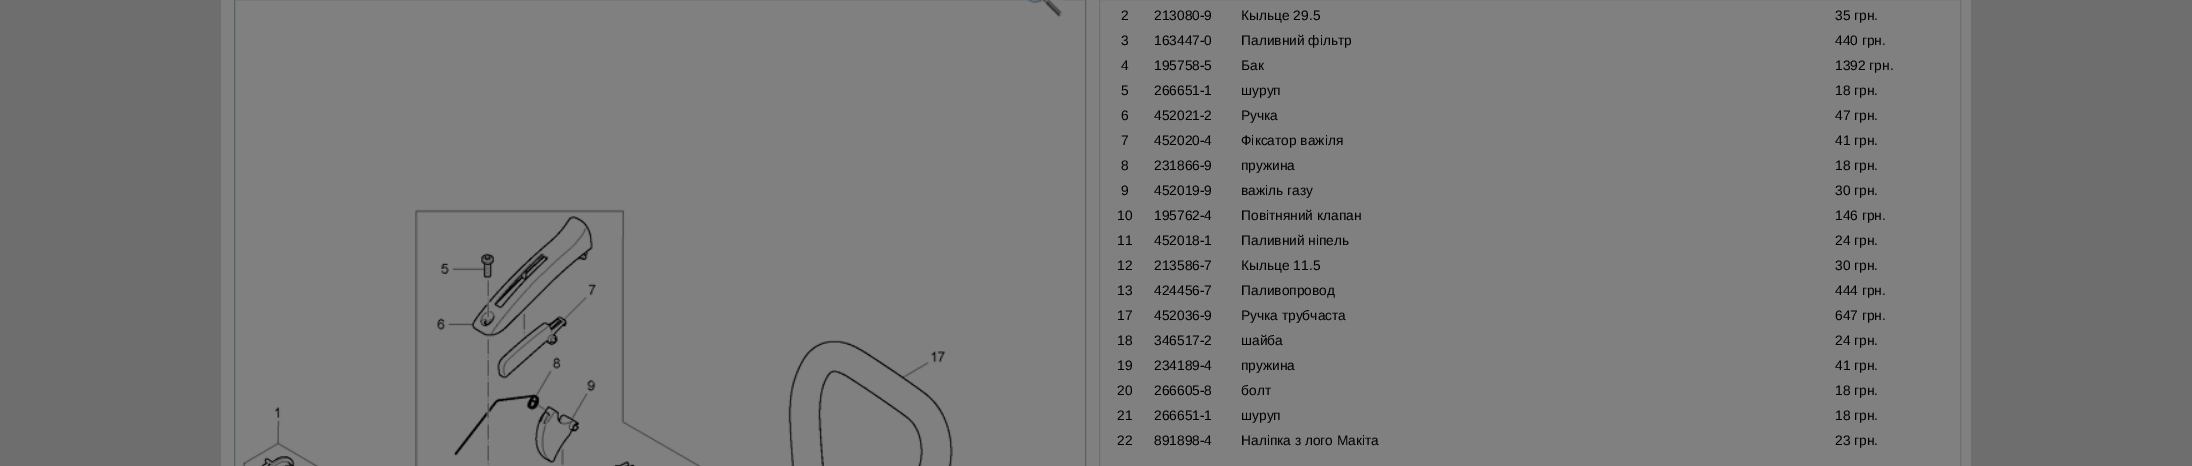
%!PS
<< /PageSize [2192 466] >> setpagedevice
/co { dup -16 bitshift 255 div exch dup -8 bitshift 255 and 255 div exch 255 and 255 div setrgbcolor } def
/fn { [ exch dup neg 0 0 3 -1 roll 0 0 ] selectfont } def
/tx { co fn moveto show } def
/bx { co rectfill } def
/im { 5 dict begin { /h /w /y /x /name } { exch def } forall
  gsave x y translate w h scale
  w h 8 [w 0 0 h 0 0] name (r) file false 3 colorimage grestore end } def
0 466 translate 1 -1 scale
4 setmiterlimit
0 0 2192 466 16#6E6E6E bx
221 0 1750 466 16#808080 bx
16#576263 co
234.5 -.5 851 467 rectstroke
(media/1.raw) 1027 0 36 17 im
(media/2.raw) 242 209 711 257 im
16#707070 co
1099.5 -.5 861 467 rectstroke
(2) 1121 20 /LiberationSans-Regular 13.75 16#000000 tx
(213080-9) 1154 20 /LiberationSans-Regular 13.75 16#000000 tx
(Кыльце 29.5) 1241 20 /LiberationSans-Regular 13.75 16#000000 tx
(35 грн.) 1835 20 /LiberationSans-Regular 13.75 16#000000 tx
(3) 1121 45 /LiberationSans-Regular 13.75 16#000000 tx
(163447-0) 1154 45 /LiberationSans-Regular 13.75 16#000000 tx
(Паливний фільтр) 1241 45 /LiberationSans-Regular 13.75 16#000000 tx
(440 грн.) 1835 45 /LiberationSans-Regular 13.75 16#000000 tx
(4) 1121 70 /LiberationSans-Regular 13.75 16#000000 tx
(195758-5) 1154 70 /LiberationSans-Regular 13.75 16#000000 tx
(Бак) 1241 70 /LiberationSans-Regular 13.75 16#000000 tx
(1392 грн.) 1835 70 /LiberationSans-Regular 13.75 16#000000 tx
(5) 1121 95 /LiberationSans-Regular 13.75 16#000000 tx
(266651-1) 1154 95 /LiberationSans-Regular 13.75 16#000000 tx
(шуруп) 1241 95 /LiberationSans-Regular 13.75 16#000000 tx
(18 грн.) 1835 95 /LiberationSans-Regular 13.75 16#000000 tx
(6) 1121 120 /LiberationSans-Regular 13.75 16#000000 tx
(452021-2) 1154 120 /LiberationSans-Regular 13.75 16#000000 tx
(Ручка) 1241 120 /LiberationSans-Regular 13.75 16#000000 tx
(47 грн.) 1835 120 /LiberationSans-Regular 13.75 16#000000 tx
(7) 1121 145 /LiberationSans-Regular 13.75 16#000000 tx
(452020-4) 1154 145 /LiberationSans-Regular 13.75 16#000000 tx
(Фіксатор важіля) 1241 145 /LiberationSans-Regular 13.75 16#000000 tx
(41 грн.) 1835 145 /LiberationSans-Regular 13.75 16#000000 tx
(8) 1121 170 /LiberationSans-Regular 13.75 16#000000 tx
(231866-9) 1154 170 /LiberationSans-Regular 13.75 16#000000 tx
(пружина) 1241 170 /LiberationSans-Regular 13.75 16#000000 tx
(18 грн.) 1835 170 /LiberationSans-Regular 13.75 16#000000 tx
(9) 1121 195 /LiberationSans-Regular 13.75 16#000000 tx
(452019-9) 1154 195 /LiberationSans-Regular 13.75 16#000000 tx
(важіль газу) 1241 195 /LiberationSans-Regular 13.75 16#000000 tx
(30 грн.) 1835 195 /LiberationSans-Regular 13.75 16#000000 tx
(10) 1117 220 /LiberationSans-Regular 13.75 16#000000 tx
(195762-4) 1154 220 /LiberationSans-Regular 13.75 16#000000 tx
(Повітняний клапан) 1241 220 /LiberationSans-Regular 13.75 16#000000 tx
(146 грн.) 1835 220 /LiberationSans-Regular 13.75 16#000000 tx
(11) 1117 245 /LiberationSans-Regular 13.75 16#000000 tx
(452018-1) 1154 245 /LiberationSans-Regular 13.75 16#000000 tx
(Паливний ніпель) 1241 245 /LiberationSans-Regular 13.75 16#000000 tx
(24 грн.) 1835 245 /LiberationSans-Regular 13.75 16#000000 tx
(12) 1117 270 /LiberationSans-Regular 13.75 16#000000 tx
(213586-7) 1154 270 /LiberationSans-Regular 13.75 16#000000 tx
(Кыльце 11.5) 1241 270 /LiberationSans-Regular 13.75 16#000000 tx
(30 грн.) 1835 270 /LiberationSans-Regular 13.75 16#000000 tx
(13) 1117 295 /LiberationSans-Regular 13.75 16#000000 tx
(424456-7) 1154 295 /LiberationSans-Regular 13.75 16#000000 tx
(Паливопровод) 1241 295 /LiberationSans-Regular 13.75 16#000000 tx
(444 грн.) 1835 295 /LiberationSans-Regular 13.75 16#000000 tx
(17) 1117 320 /LiberationSans-Regular 13.75 16#000000 tx
(452036-9) 1154 320 /LiberationSans-Regular 13.75 16#000000 tx
(Ручка трубчаста) 1241 320 /LiberationSans-Regular 13.75 16#000000 tx
(647 грн.) 1835 320 /LiberationSans-Regular 13.75 16#000000 tx
(18) 1117 345 /LiberationSans-Regular 13.75 16#000000 tx
(346517-2) 1154 345 /LiberationSans-Regular 13.75 16#000000 tx
(шайба) 1241 345 /LiberationSans-Regular 13.75 16#000000 tx
(24 грн.) 1835 345 /LiberationSans-Regular 13.75 16#000000 tx
(19) 1117 370 /LiberationSans-Regular 13.75 16#000000 tx
(234189-4) 1154 370 /LiberationSans-Regular 13.75 16#000000 tx
(пружина) 1241 370 /LiberationSans-Regular 13.75 16#000000 tx
(41 грн.) 1835 370 /LiberationSans-Regular 13.75 16#000000 tx
(20) 1117 395 /LiberationSans-Regular 13.75 16#000000 tx
(266605-8) 1154 395 /LiberationSans-Regular 13.75 16#000000 tx
(болт) 1241 395 /LiberationSans-Regular 13.75 16#000000 tx
(18 грн.) 1835 395 /LiberationSans-Regular 13.75 16#000000 tx
(21) 1117 420 /LiberationSans-Regular 13.75 16#000000 tx
(266651-1) 1154 420 /LiberationSans-Regular 13.75 16#000000 tx
(шуруп) 1241 420 /LiberationSans-Regular 13.75 16#000000 tx
(18 грн.) 1835 420 /LiberationSans-Regular 13.75 16#000000 tx
(22) 1117 445 /LiberationSans-Regular 13.75 16#000000 tx
(891898-4) 1154 445 /LiberationSans-Regular 13.75 16#000000 tx
(Наліпка з лого Макіта) 1241 445 /LiberationSans-Regular 13.75 16#000000 tx
(23 грн.) 1835 445 /LiberationSans-Regular 13.75 16#000000 tx
showpage
